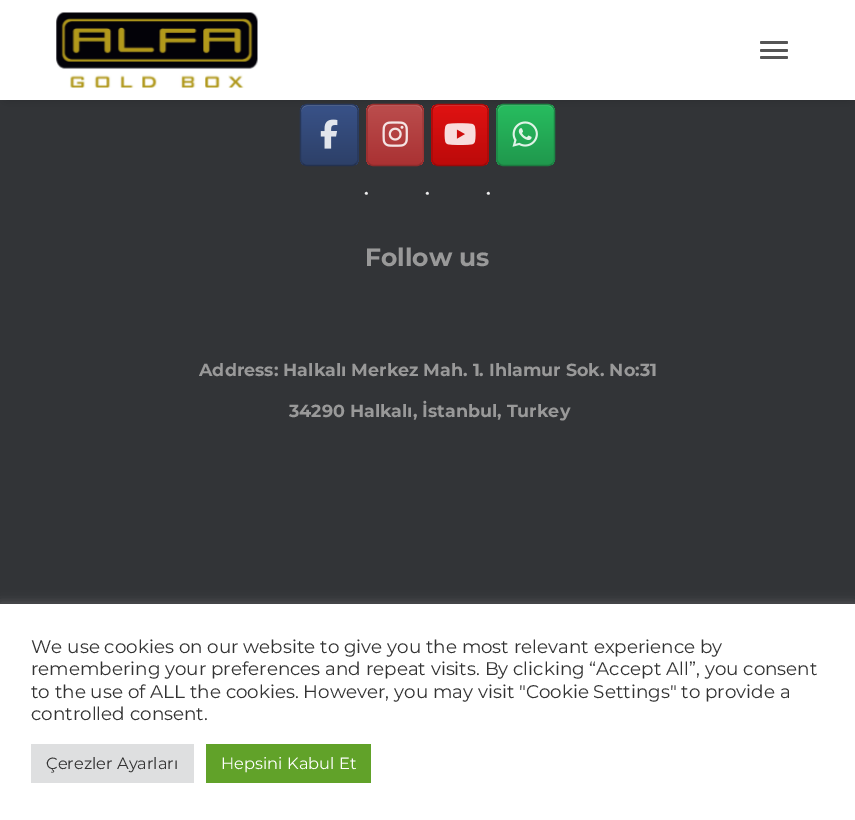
%!PS
<< /PageSize [855 820] /PageUsesTransparency true >> setpagedevice
/mt/moveto load def
/li/lineto load def
/ct/curveto load def
/cp/closepath load def
/fl/fill load def
/st/stroke load def
/gs/gsave load def
/gr/grestore load def
/lw/setlinewidth load def
/co { dup -16 bitshift 255 div exch dup -8 bitshift 255 and 255 div exch 255 and 255 div setrgbcolor } def
/fn { [ exch dup neg 0 0 3 -1 roll 0 0 ] selectfont } def
/tx { co fn moveto show } def
/bx { co rectfill } def
/al { dup .setfillconstantalpha .setstrokeconstantalpha } def
/rr { 5 dict begin { /r /h /w /y /x } { exch def } forall
  x r add y moveto x w add y 2 copy h add r arct x w add y h add x 1 index r arct
  x y h add x y r arct x y 2 copy exch w add exch r arct closepath end } def
/sh { 12 dict begin { /a /b /q /h /w /y /x } { exch def } forall gsave /was 0 def
  9 -2 -9 { dup b mul 4 div /e exch def 1 sub .425 mul 2.718 exch exp 1 add a .99 .min exch div /now exch def
    1 1 now sub 1 was sub div sub al /was now def
    w h .min e 2 mul add 0 gt { x e sub y e sub w e 2 mul add h e 2 mul add
      q e add b .6 mul add w h .min 2 div e add .min 0 .max rr fill } if } for grestore end } def
/im { 5 dict begin { /h /w /y /x /name } { exch def } forall
  gsave x y translate w h scale
  w h 8 [w 0 0 h 0 0] name (r) file false 3 colorimage grestore end } def
0 .pushpdf14devicefilter
0 820 translate 1 -1 scale
4 setmiterlimit
0 0 855 820 16#323437 bx
gs
300 104 59 62 8 rr clip newpath
gs 300 105 mt 359 105 li 359 165 li 300 165 li cp clip newpath
<< /ShadingType 2 /ColorSpace /DeviceRGB /Coords [301 165 301 105] /Extend [true true] /Function << /FunctionType 2 /Domain [0 1] /C0 [.176 .251 .408] /C1 [.224 .322 .533] /N 1 >> >> shfill gr
gr
16#5B6F9A co
307 106 mt 351 106 li 355 106 358 109 358 112 ct 358 104 351 105 344 105 ct 314 105 li 308 105 301 104 301 112 ct 301 109 304 106 307 106 ct cp fl
16#293A5F co
1.2 lw
302.5 106.5 mt 304 105 305.5 104.5 307.5 104.5 ct 351.5 104.5 li 353 104.5 355 105 356 106.5 ct st
16#273759 co
356 106.5 mt 357.5 107.5 358 109.5 358 111 ct 358 159 li 358 160.5 357.5 162.5 356 163.5 ct st
16#23314F co
356 163.5 mt 355 165 353 165.5 351.5 165.5 ct 307.5 165.5 li 305.5 165.5 304 165 302.5 163.5 ct st
16#273759 co
302.5 163.5 mt 301.5 162.5 300.5 160.5 300.5 159 ct 300.5 111 li 300.5 109.5 301.5 107.5 302.5 106.5 ct st
gs
366 104 58 62 8 rr clip newpath
gs 366 105 mt 424 105 li 424 165 li 366 165 li cp clip newpath
<< /ShadingType 2 /ColorSpace /DeviceRGB /Coords [368 165 368 105] /Extend [true true] /Function << /FunctionType 2 /Domain [0 1] /C0 [.667 .196 .2] /C1 [.733 .302 .302] /N 1 >> >> shfill gr
gr
0.2 al
16#E2E3E3 co
374 106 mt 416 106 li 420 106 422 109 422 112 ct 422 160 li 421 163 li 424 160 423 154 423 151 ct 423 135 li 423 101 429 105 396 105 ct 381 105 li 375 105 368 104 368 112 ct 368 109 370 106 374 106 ct cp fl
1 al
16#9F3030 co
369 106.5 mt 370 105 372 104.5 373.5 104.5 ct 416.5 104.5 li 418 104.5 420 105 421 106.5 ct st
16#982E2E co
421 106.5 mt 422.5 107.5 423 109.5 423 111 ct 423 159 li 423 160.5 422.5 162.5 421 163.5 ct st
16#8E2B2B co
421 163.5 mt 420 165 418 165.5 416.5 165.5 ct 373.5 165.5 li 372 165.5 370 165 369 163.5 ct st
16#982E2E co
369 163.5 mt 367.5 162.5 367 160.5 367 159 ct 367 111 li 367 109.5 367.5 107.5 369 106.5 ct st
gs
431 104 58 62 8 rr clip newpath
gs 431 105 mt 489 105 li 489 165 li 431 165 li cp clip newpath
<< /ShadingType 2 /ColorSpace /DeviceRGB /Coords [433 165 433 105] /Extend [true true] /Function << /FunctionType 2 /Domain [0 1] /C0 [.737 .039 .039] /C1 [.878 .071 .071] /N 1 >> >> shfill gr
gr
16#E03C3C co
439 106 mt 481 106 li 485 106 488 109 488 112 ct 488 111 li 488 108 485 105 482 105 ct 439 105 li 437 105 435 106 434 108 ct 435 107 437 106 439 106 ct cp fl
16#AF0909 co
434 106.5 mt 435 105 437 104.5 438.5 104.5 ct 481.5 104.5 li 483 104.5 485 105 486 106.5 ct st
16#A60909 co
486 106.5 mt 487.5 107.5 488 109.5 488 111 ct 488 159 li 488 160.5 487.5 162.5 486 163.5 ct st
16#990909 co
486 163.5 mt 485 165 483 165.5 481.5 165.5 ct 438.5 165.5 li 437 165.5 435 165 434 163.5 ct st
16#A60909 co
434 163.5 mt 432.5 162.5 432 160.5 432 159 ct 432 111 li 432 109.5 432.5 107.5 434 106.5 ct st
gs
496 104 59 62 8 rr clip newpath
gs 496 105 mt 555 105 li 555 165 li 496 165 li cp clip newpath
<< /ShadingType 2 /ColorSpace /DeviceRGB /Coords [498 165 498 105] /Extend [true true] /Function << /FunctionType 2 /Domain [0 1] /C0 [.125 .596 .302] /C1 [.153 .741 .373] /N 1 >> >> shfill gr
gr
16#4CC479 co
504 106 mt 548 106 li 551 106 554 109 554 112 ct 554 104 547 105 541 105 ct 511 105 li 505 105 498 104 498 112 ct 498 109 500 106 504 106 ct cp fl
16#1E8D48 co
499 106.5 mt 500 105 502 104.5 503.5 104.5 ct 547.5 104.5 li 549.5 104.5 551 105 552.5 106.5 ct st
16#1D8545 co
552.5 106.5 mt 553.5 107.5 554.5 109.5 554.5 111 ct 554.5 159 li 554.5 160.5 553.5 162.5 552.5 163.5 ct st
16#1B7A3F co
552.5 163.5 mt 551 165 549.5 165.5 547.5 165.5 ct 503.5 165.5 li 502 165.5 500 165 499 163.5 ct st
16#1D8545 co
499 163.5 mt 497.5 162.5 497 160.5 497 159 ct 497 111 li 497 109.5 497.5 107.5 499 106.5 ct st
16#000000 co
8 9 840 85 0 6 .42 sh
0 0 855 100 16#FFFFFF bx
(media/1.raw) 56 12 202 76 im
16#555555 co
760 41 28 3 1.5 rr fl
760 49 28 3 1.5 rr fl
760 56 28 3 1.5 rr fl
(media/2.raw) 320 119 18 30 im
(media/3.raw) 382 121 26 26 im
(media/4.raw) 444 123 32 22 im
(media/5.raw) 512 121 26 26 im
16#ACABAB co
0 603 855 216 0 6 .3 sh
0 604 855 216 16#FFFFFF bx
31 744 163 39 16#DEDFE0 bx
206 744 165 39 16#61A229 bx
/LiberationSerif-Regular 26.25 fn
16#EEEEEE co
362 202 mt 52.5 0 (···) ashow
(Follow us) 365 266 /Montserrat-Bold 25 16#999999 tx
(Address: Halkalı Merkez Mah. 1. Ihlamur Sok. No:31) 199 376 /Montserrat-Bold 17.5 16#999999 tx
(34290 Halkalı, İstanbul, Turkey) 289 417 /Montserrat-Bold 17.5 16#999999 tx
(We use cookies on our website to give you the most relevant experience by) 31 653 /Montserrat-Regular 18.35 16#333333 tx
(remembering your preferences and repeat visits. By clicking “Accept All”, you consent) 31 675 /Montserrat-Regular 18.35 16#333333 tx
(to the use of ALL the cookies. However, you may visit "Cookie Settings" to provide a) 31 698 /Montserrat-Regular 18.35 16#333333 tx
(controlled consent.) 31 720 /Montserrat-Regular 18.35 16#333333 tx
(Çerezler Ayarları) 46 769 /Montserrat-Regular 16.25 16#333333 tx
(Hepsini Kabul Et) 221 769 /Montserrat-Regular 16.25 16#FFFFFF tx
.poppdf14devicefilter showpage
